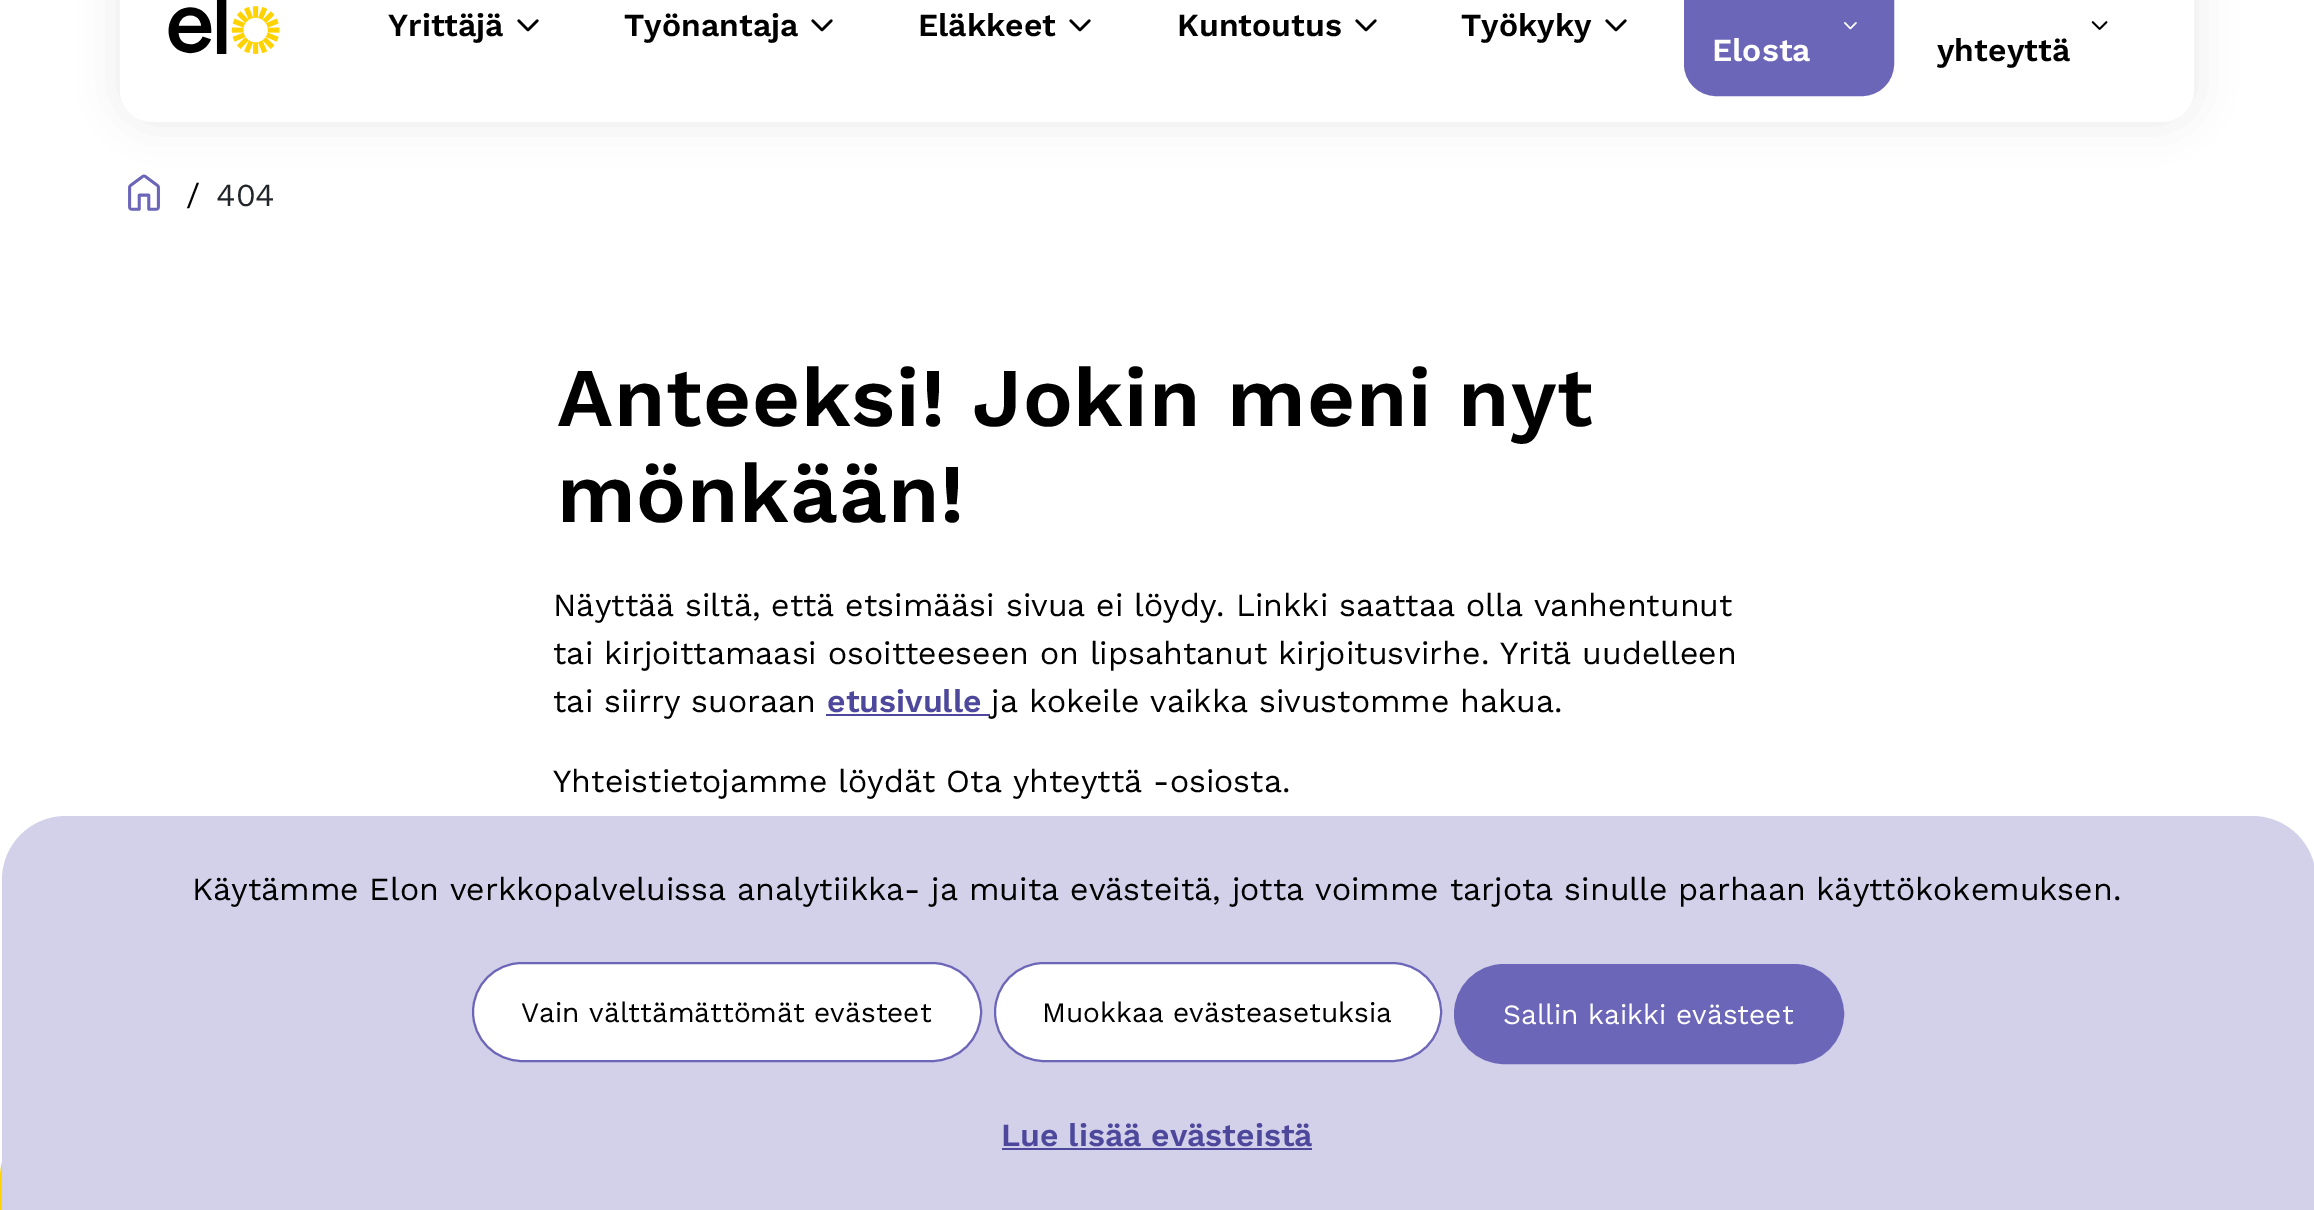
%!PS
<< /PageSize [2314 1210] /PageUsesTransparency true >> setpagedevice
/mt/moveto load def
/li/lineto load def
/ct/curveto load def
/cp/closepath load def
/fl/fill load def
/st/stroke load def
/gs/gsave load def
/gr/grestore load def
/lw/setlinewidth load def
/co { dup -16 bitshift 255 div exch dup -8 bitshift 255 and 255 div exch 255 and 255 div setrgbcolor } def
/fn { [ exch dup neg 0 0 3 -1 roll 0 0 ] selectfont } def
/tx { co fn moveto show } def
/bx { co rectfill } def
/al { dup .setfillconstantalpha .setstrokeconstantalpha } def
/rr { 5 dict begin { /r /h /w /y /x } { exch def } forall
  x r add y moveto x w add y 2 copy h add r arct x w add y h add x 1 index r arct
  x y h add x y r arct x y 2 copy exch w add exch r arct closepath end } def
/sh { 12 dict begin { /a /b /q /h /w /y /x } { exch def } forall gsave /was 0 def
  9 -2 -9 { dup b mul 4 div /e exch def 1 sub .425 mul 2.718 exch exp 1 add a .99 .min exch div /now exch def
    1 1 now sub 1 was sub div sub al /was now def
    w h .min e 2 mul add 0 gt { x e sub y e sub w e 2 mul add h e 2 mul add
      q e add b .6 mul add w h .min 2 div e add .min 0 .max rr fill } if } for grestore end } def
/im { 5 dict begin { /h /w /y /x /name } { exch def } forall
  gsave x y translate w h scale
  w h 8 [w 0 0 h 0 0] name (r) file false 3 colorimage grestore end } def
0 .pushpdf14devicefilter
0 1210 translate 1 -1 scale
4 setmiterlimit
0 0 2314 1210 16#FFFFFF bx
(media/5.raw) 128 174 32 37 im
16#000000 co
120 -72 2074 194 32 20 .08 sh
16#FFFFFF co
120 -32 2074 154 32 rr fl
(media/1.raw) 168 0 112 54 im
(media/2.raw) 517 19 22 13 im
(media/2.raw) 811 19 22 13 im
(media/2.raw) 1069 19 22 13 im
(media/2.raw) 1355 19 22 13 im
(media/2.raw) 1605 19 22 13 im
16#6C66B9 co
1686 -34 206 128 30 rr gs fl gr
4 lw
st
(media/3.raw) 1844 22 13 8 im
(media/4.raw) 2091 21 17 9 im
826 714 164 2 16#4E489D bx
16#FFD200 co
64 1114 mt 2250 1114 li 2285.5 1114 2314 1142.5 2314 1178 ct 2314 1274 li 0 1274 li 0 1178 li 0 1142.5 28.5 1114 64 1114 ct cp fl
16#D3D1EA co
66 816 mt 2252 816 li 2287.5 816 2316 844.5 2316 880 ct 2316 1210 li 2 1210 li 2 880 li 2 844.5 30.5 816 66 816 ct cp fl
16#FFFFFF co
473 963 508 98 49 rr gs fl gr
16#6C66B9 co
2 lw
st
16#FFFFFF co
995 963 446 98 49 rr gs fl gr
16#6C66B9 co
st
1455 965 388 98 49 rr gs fl gr
st
1002 1148 310 2 16#4E489D bx
(Yrittäjä) 388 36 /WorkSans-SemiBold 32 16#000000 tx
(Työnantaja) 624 36 /WorkSans-SemiBold 32 16#000000 tx
(Eläkkeet) 918 36 /WorkSans-SemiBold 32 16#000000 tx
(Kuntoutus) 1177 36 /WorkSans-SemiBold 32 16#000000 tx
(Työkyky) 1461 36 /WorkSans-SemiBold 32 16#000000 tx
(Elosta) 1712 61 /WorkSans-SemiBold 32 16#FFFFFF tx
(yhteyttä) 1937 61 /WorkSans-SemiBold 32 16#000000 tx
(/) 186 206 /WorkSans-Regular 32 16#000000 tx
(404) 216 206 /WorkSans-Regular 32 16#212529 tx
/WorkSans-SemiBold 83.25 fn
16#000000 co
557 426 mt .8 0 (Anteeksi! Jokin meni nyt) ashow
557 522 mt .8 0 (mönkään!) ashow
(Näyttää siltä, että etsimääsi sivua ei löydy. Linkki saattaa olla vanhentunut) 553 616 /WorkSans-Regular 32 16#000000 tx
(tai kirjoittamaasi osoitteeseen on lipsahtanut kirjoitusvirhe. Yritä uudelleen) 553 664 /WorkSans-Regular 32 16#000000 tx
(tai siirry suoraan) 553 712 /WorkSans-Regular 32 16#000000 tx
(etusivulle) 827 712 /WorkSans-SemiBold 32 16#4E489D tx
(ja kokeile vaikka sivustomme hakua.) 991 712 /WorkSans-Regular 32 16#000000 tx
(Yhteistietojamme löydät Ota yhteyttä -osiosta.) 553 792 /WorkSans-Regular 32 16#000000 tx
(Käytämme Elon verkkopalveluissa analytiikka- ja muita evästeitä, jotta voimme tarjota sinulle parhaan käyttökokemuksen.) 192 900 /WorkSans-Regular 32 16#000000 tx
(Vain välttämättömät evästeet) 521 1022 /WorkSans-Regular 28 16#000000 tx
(Muokkaa evästeasetuksia) 1042 1022 /WorkSans-Regular 28 16#000000 tx
(Sallin kaikki evästeet) 1503 1024 /WorkSans-Regular 28 16#FFFFFF tx
(Lue lisää evästeistä) 1001 1146 /WorkSans-SemiBold 32 16#4E489D tx
.poppdf14devicefilter showpage
